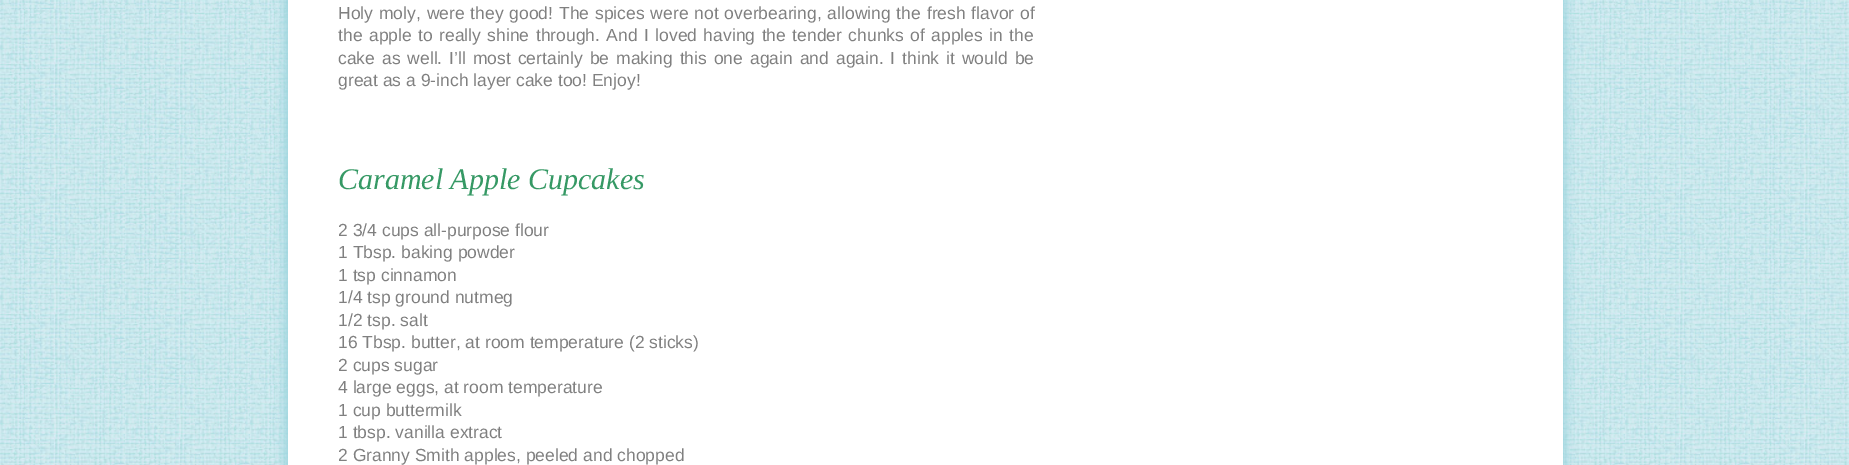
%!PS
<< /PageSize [1849 465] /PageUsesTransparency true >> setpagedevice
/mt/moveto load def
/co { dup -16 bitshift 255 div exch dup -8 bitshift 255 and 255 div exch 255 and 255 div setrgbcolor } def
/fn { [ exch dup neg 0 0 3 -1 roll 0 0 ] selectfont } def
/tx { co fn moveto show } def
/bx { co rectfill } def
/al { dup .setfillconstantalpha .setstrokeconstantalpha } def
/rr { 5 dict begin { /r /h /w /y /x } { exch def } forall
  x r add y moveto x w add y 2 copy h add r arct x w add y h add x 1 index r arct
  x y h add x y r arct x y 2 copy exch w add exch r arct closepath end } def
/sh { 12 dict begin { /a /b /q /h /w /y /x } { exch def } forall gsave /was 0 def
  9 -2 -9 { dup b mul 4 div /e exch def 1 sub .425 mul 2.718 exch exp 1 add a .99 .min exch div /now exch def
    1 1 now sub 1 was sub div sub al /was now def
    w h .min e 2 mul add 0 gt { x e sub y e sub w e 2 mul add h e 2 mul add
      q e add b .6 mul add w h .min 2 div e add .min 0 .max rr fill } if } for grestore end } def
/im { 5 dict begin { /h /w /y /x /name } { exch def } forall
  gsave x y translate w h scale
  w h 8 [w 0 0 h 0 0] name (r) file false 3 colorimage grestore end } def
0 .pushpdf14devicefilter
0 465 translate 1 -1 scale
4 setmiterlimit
0 0 1849 465 16#FFFFFF bx
(media/1.raw) 0 0 1849 465 im
16#99D4DD co
285 -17 1280 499 0 5.5 1 sh
288 0 1275 465 16#FFFFFF bx
/LiberationSans-Regular 17.5 fn
16#808080 co
338 19 mt 1 0 32 (Holy moly, were they good! The spices were not overbearing, allowing the fresh flavor of) widthshow
338 41 mt 1.6 0 32 (the apple to really shine through. And I loved having the tender chunks of apples in the) widthshow
338 64 mt 2.1 0 32 (cake as well. I’ll most certainly be making this one again and again. I think it would be) widthshow
(great as a 9-inch layer cake too! Enjoy!) 338 86 /LiberationSans-Regular 17.5 16#808080 tx
(Caramel Apple Cupcakes) 338 189 /LiberationSerif-Italic 30 16#369965 tx
(2 3/4 cups all-purpose flour) 338 236 /LiberationSans-Regular 17.5 16#808080 tx
(1 Tbsp. baking powder) 338 258 /LiberationSans-Regular 17.5 16#808080 tx
(1 tsp cinnamon) 338 281 /LiberationSans-Regular 17.5 16#808080 tx
(1/4 tsp ground nutmeg) 338 303 /LiberationSans-Regular 17.5 16#808080 tx
(1/2 tsp. salt) 338 326 /LiberationSans-Regular 17.5 16#808080 tx
(16 Tbsp. butter, at room temperature \(2 sticks\)) 338 348 /LiberationSans-Regular 17.5 16#808080 tx
(2 cups sugar) 338 371 /LiberationSans-Regular 17.5 16#808080 tx
(4 large eggs, at room temperature) 338 393 /LiberationSans-Regular 17.5 16#808080 tx
(1 cup buttermilk) 338 416 /LiberationSans-Regular 17.5 16#808080 tx
(1 tbsp. vanilla extract) 338 438 /LiberationSans-Regular 17.5 16#808080 tx
(2 Granny Smith apples, peeled and chopped) 338 461 /LiberationSans-Regular 17.5 16#808080 tx
.poppdf14devicefilter showpage
